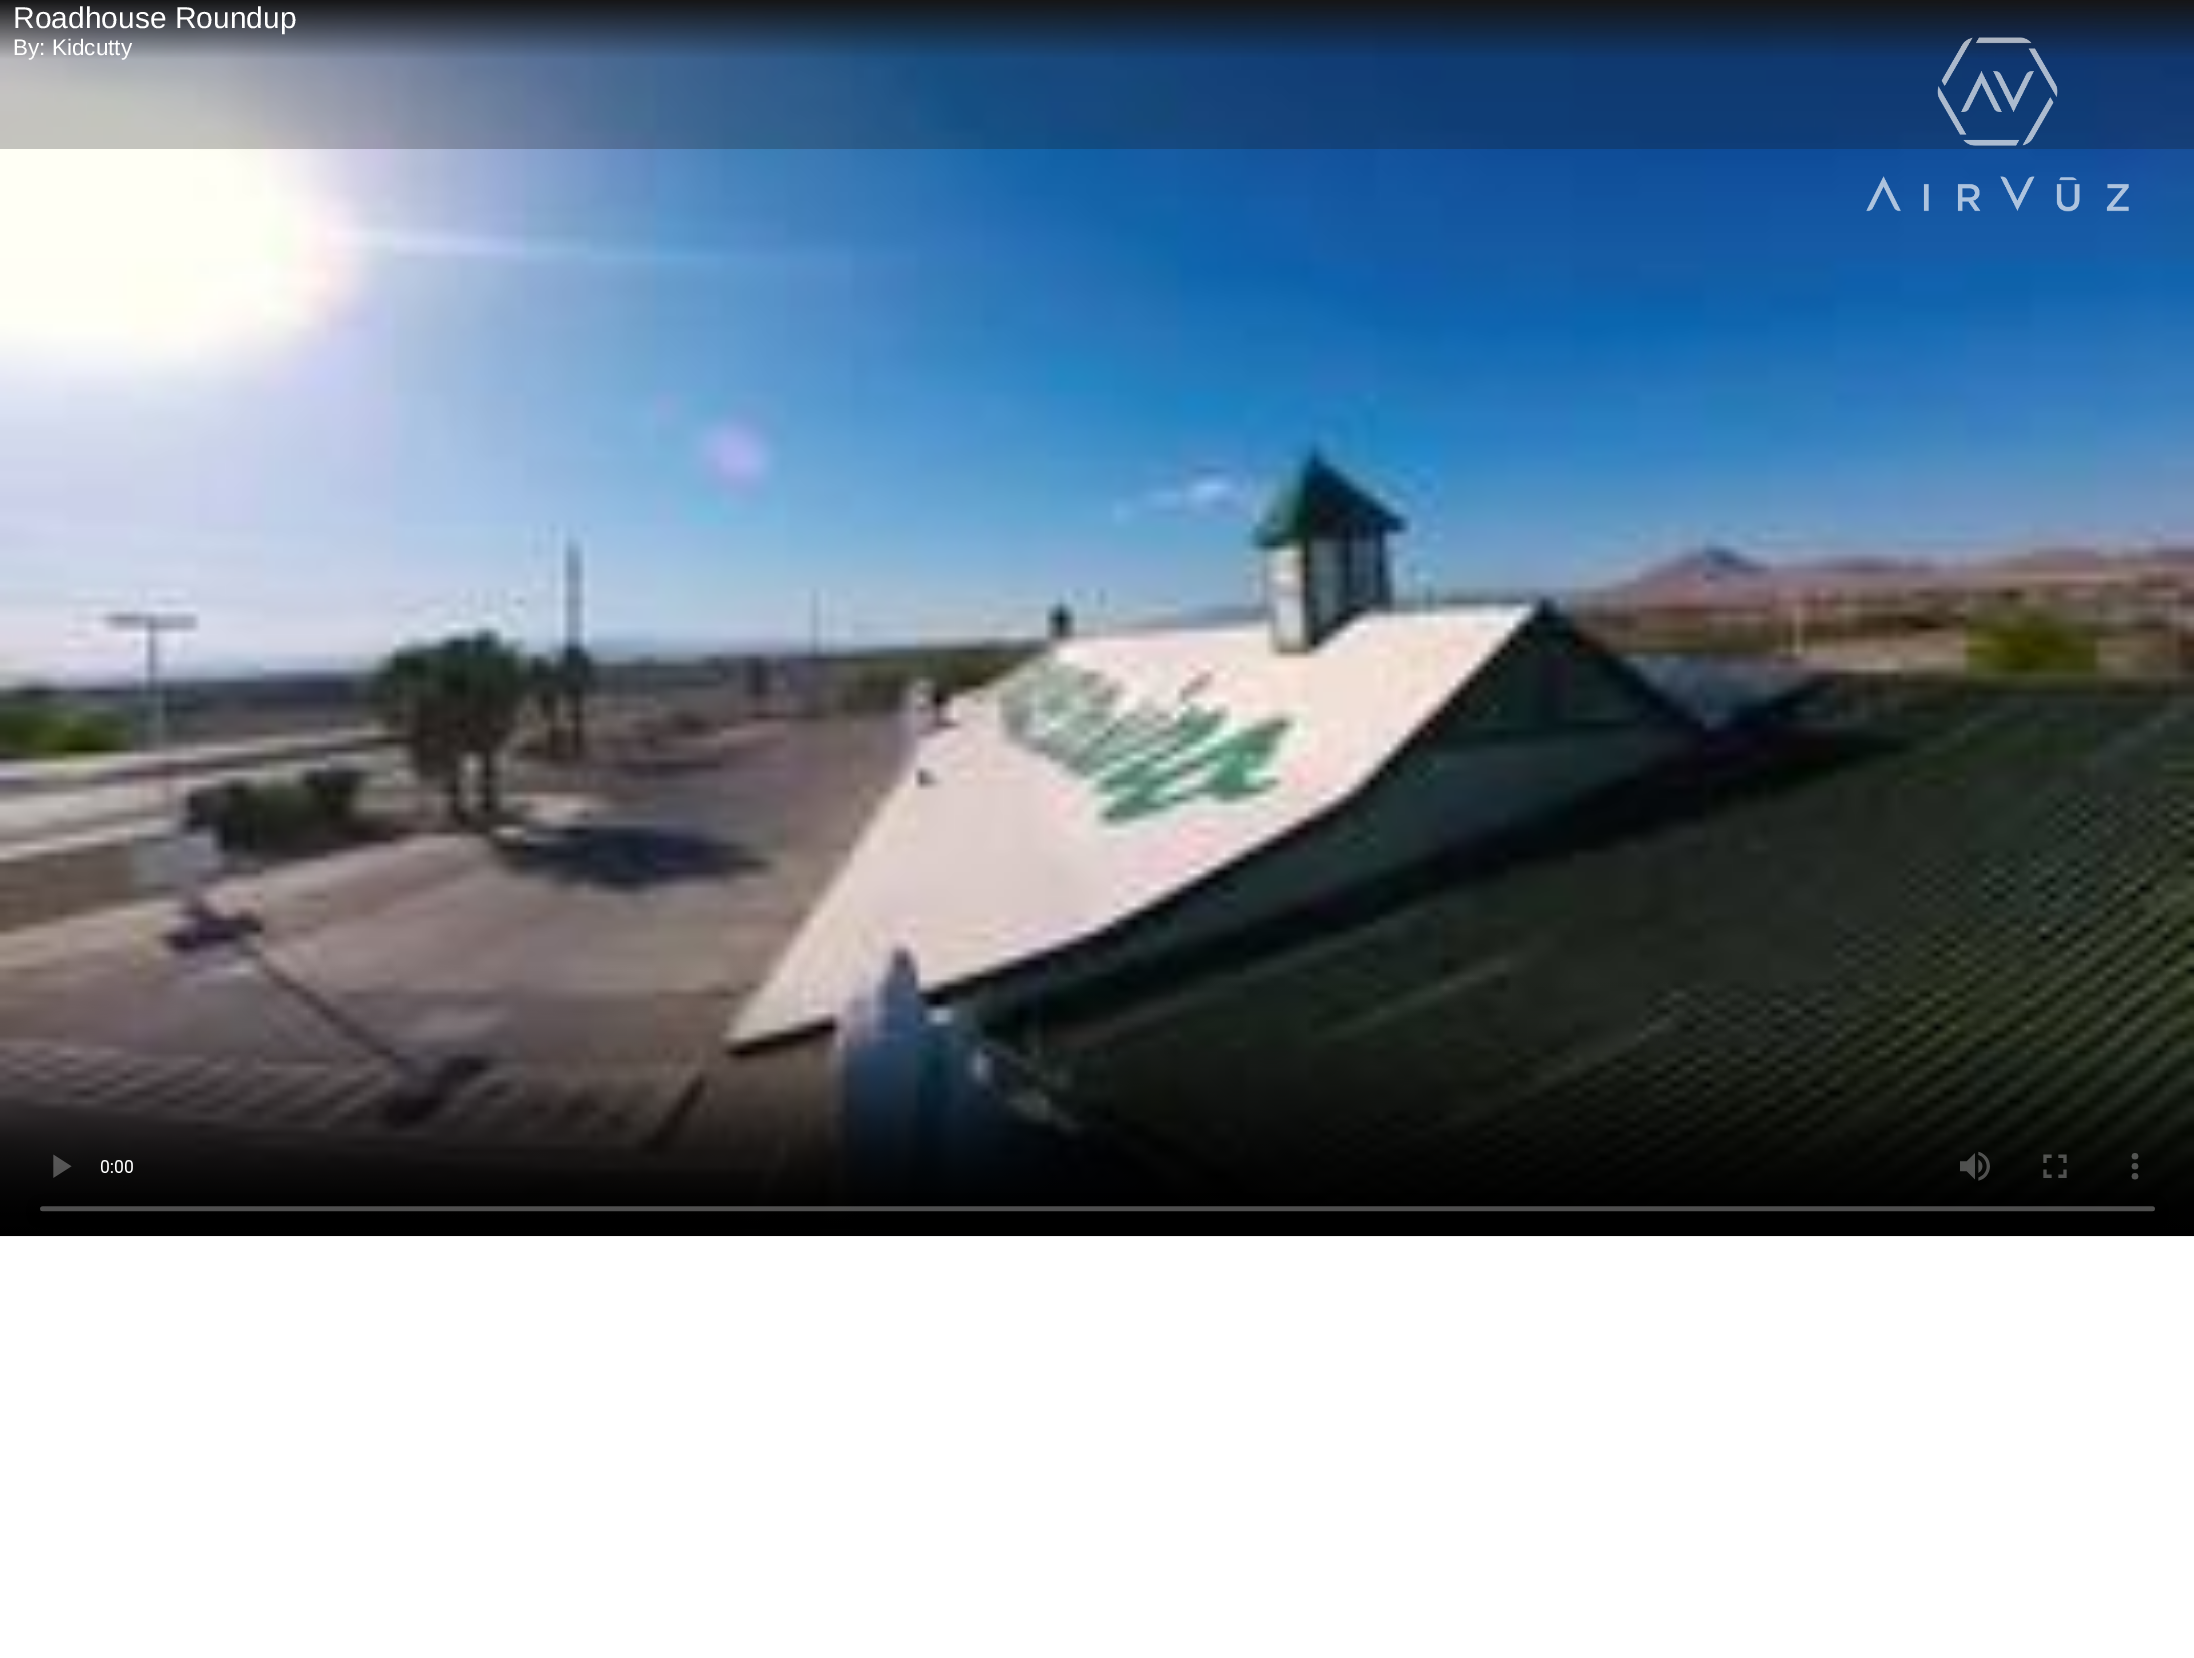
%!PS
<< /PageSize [2194 1658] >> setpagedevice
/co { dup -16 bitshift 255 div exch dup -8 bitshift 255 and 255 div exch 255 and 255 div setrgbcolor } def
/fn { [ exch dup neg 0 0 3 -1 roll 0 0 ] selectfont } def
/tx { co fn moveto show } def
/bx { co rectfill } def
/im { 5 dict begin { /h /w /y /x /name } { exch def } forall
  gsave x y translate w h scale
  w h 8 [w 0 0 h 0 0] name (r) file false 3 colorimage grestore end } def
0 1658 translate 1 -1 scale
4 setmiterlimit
0 0 2194 1658 16#FFFFFF bx
(media/1.raw) 0 0 2194 1237 im
(media/2.raw) 1866 37 263 175 im
(Roadhouse Roundup) 13 28 /LiberationSans-Regular 30 16#FFFFFF tx
(By: Kidcutty) 13 55 /LiberationSans-Regular 22.5 16#FFFFFF tx
showpage
